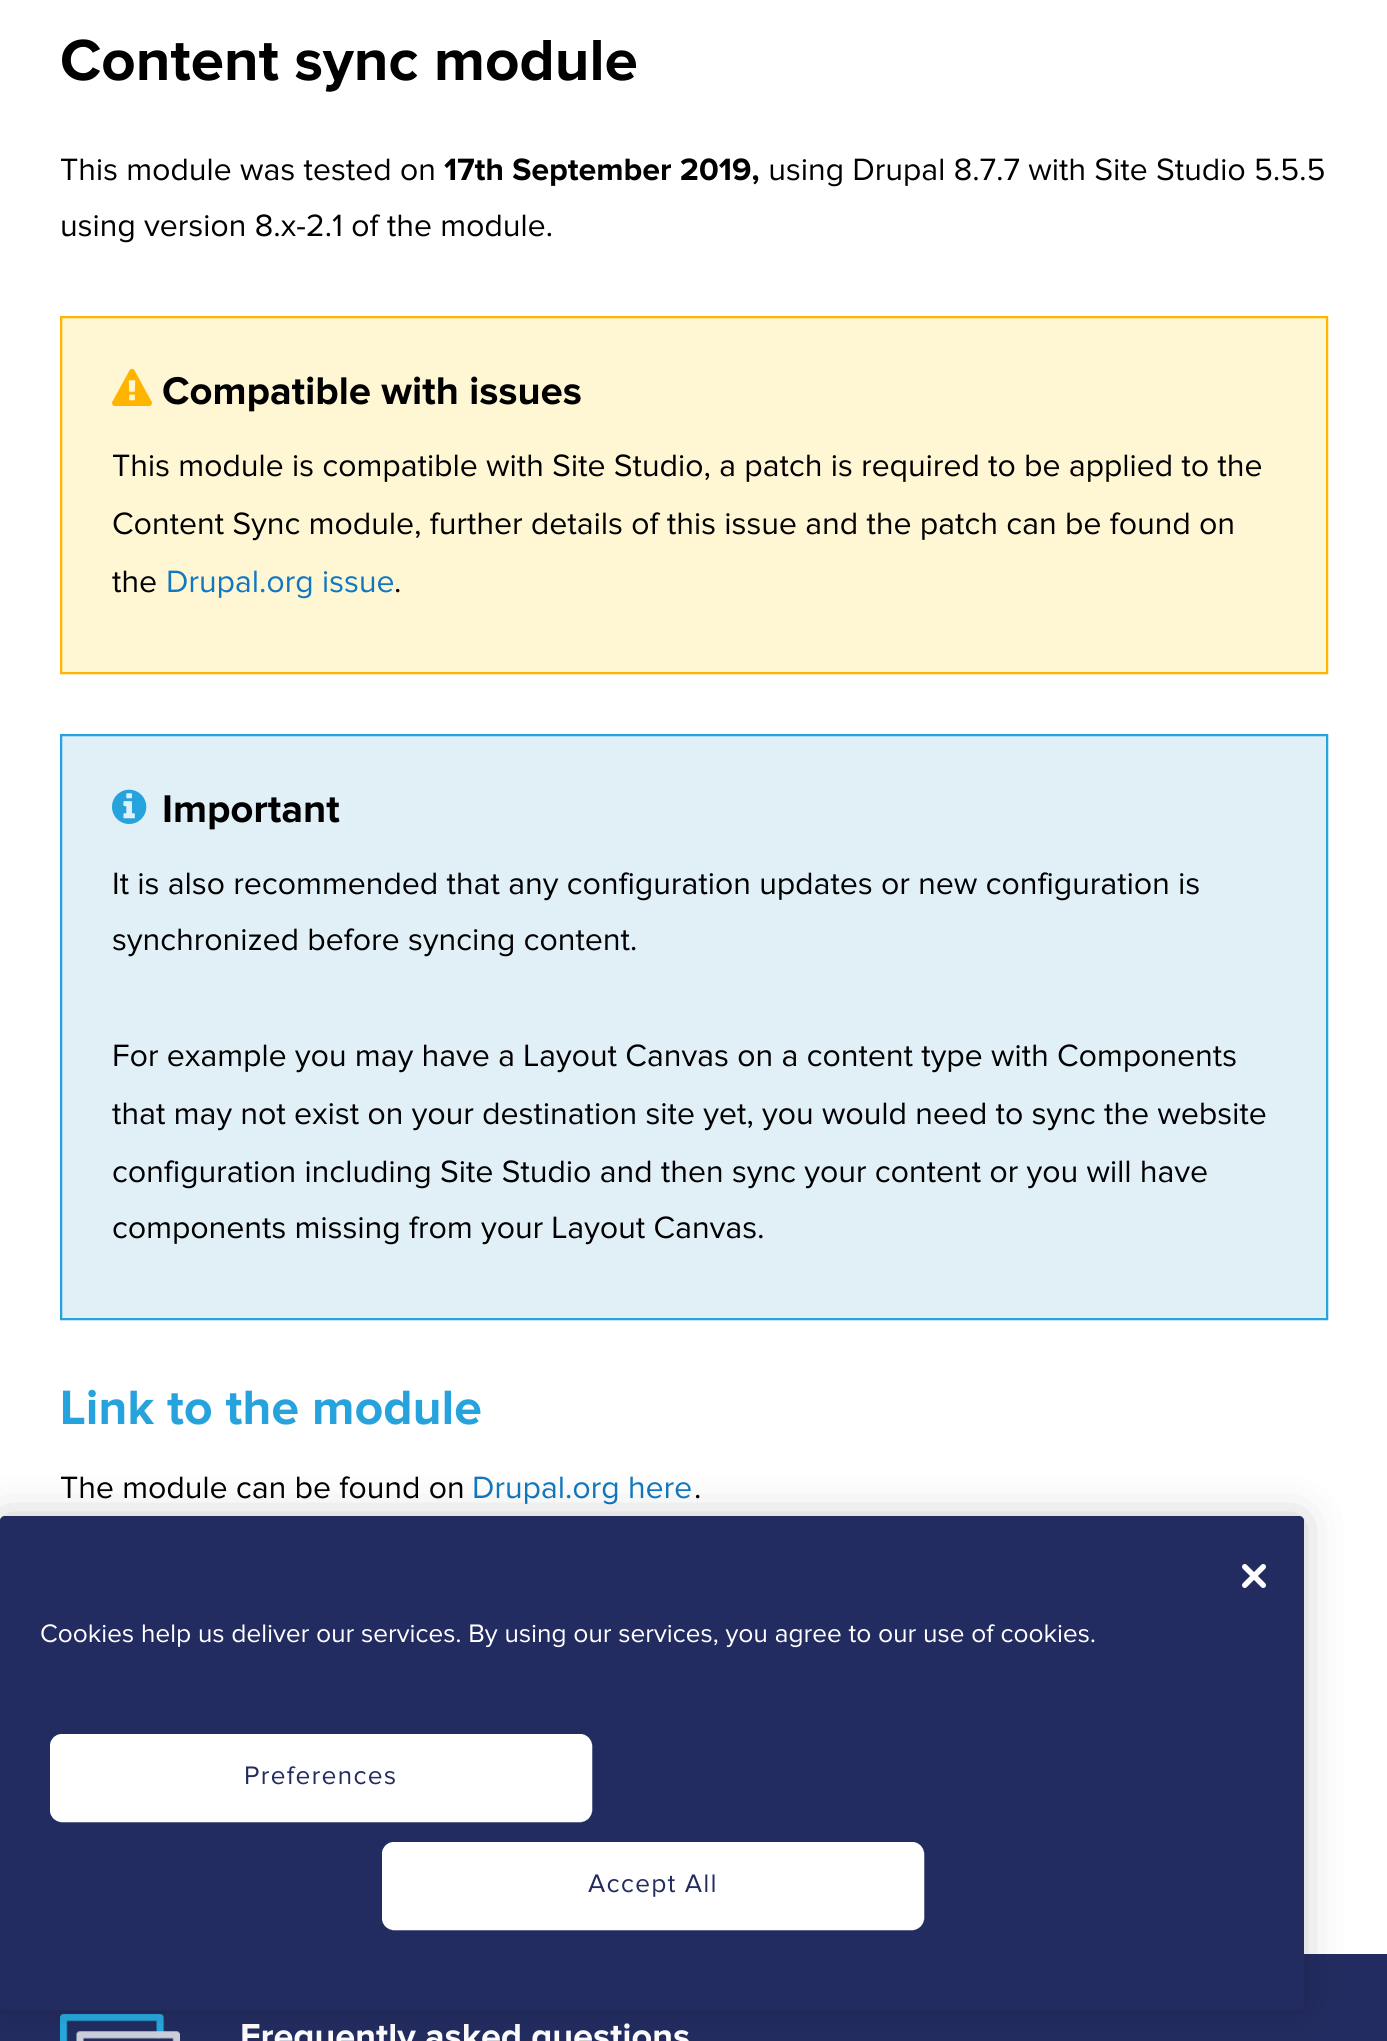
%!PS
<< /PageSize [1387 2041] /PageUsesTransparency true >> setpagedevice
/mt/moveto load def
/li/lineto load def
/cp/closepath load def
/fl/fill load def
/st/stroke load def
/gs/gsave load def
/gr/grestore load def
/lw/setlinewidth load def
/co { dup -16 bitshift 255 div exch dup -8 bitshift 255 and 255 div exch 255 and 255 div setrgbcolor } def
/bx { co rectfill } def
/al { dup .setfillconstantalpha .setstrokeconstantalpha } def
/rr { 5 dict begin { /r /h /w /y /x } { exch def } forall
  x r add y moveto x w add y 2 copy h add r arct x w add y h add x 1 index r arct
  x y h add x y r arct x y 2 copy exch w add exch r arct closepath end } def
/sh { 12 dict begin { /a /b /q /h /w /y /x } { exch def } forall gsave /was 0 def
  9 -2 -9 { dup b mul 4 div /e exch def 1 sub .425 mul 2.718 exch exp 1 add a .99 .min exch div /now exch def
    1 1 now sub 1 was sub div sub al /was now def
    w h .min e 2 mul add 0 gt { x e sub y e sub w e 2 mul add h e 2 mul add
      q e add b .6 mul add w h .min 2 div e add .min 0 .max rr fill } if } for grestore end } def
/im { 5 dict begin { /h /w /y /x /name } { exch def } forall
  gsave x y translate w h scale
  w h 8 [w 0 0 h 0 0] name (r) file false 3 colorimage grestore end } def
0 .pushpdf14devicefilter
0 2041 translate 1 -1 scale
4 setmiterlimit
0 0 1387 2041 16#FFFFFF bx
(media/1.raw) 62 39 575 53 im
(media/2.raw) 61 158 373 23 im
(media/3.raw) 444 158 315 28 im
(media/4.raw) 770 158 554 29 im
(media/5.raw) 62 214 490 29 im
16#FFF6D3 co
61 317 mt 1327 317 li 1327 673 li 61 673 li cp gs fl gr
16#FFB400 co
2 lw
st
(media/6.raw) 112 368 40 38 im
(media/7.raw) 163 376 418 36 im
(media/8.raw) 113 454 1148 28 im
(media/9.raw) 113 512 1120 29 im
(media/10.raw) 112 570 44 23 im
(media/11.raw) 168 570 226 29 im
(media/12.raw) 395 588 5 5 im
16#E1EFF7 co
61 735 mt 1327 735 li 1327 1319 li 61 1319 li cp gs fl gr
16#26A3DD co
st
(media/13.raw) 112 789 35 35 im
(media/14.raw) 164 795 176 35 im
(media/15.raw) 114 872 1085 29 im
(media/16.raw) 113 928 523 29 im
(media/17.raw) 114 1044 1122 29 im
(media/18.raw) 112 1102 1154 29 im
(media/19.raw) 113 1160 1094 29 im
(media/20.raw) 113 1216 650 29 im
(media/21.raw) 63 1389 418 36 im
(media/22.raw) 61 1476 402 23 im
(media/23.raw) 474 1476 217 29 im
(media/24.raw) 695 1494 5 5 im
0 1954 1387 87 16#232C61 bx
(media/25.raw) 60 2014 120 27 im
(media/26.raw) 242 2023 447 18 im
16#000000 co
0 1516 1304 494 5 18 .2 sh
16#232C61 co
0 1516 1304 494 5 rr fl
(media/27.raw) 1242 1564 24 24 im
(media/28.raw) 41 1624 1054 24 im
16#FFFFFF co
51 1735 540 86 11 rr gs fl gr
st
(media/29.raw) 246 1766 149 19 im
383 1843 540 86 11 rr gs fl gr
st
(media/30.raw) 588 1874 127 23 im
.poppdf14devicefilter showpage
